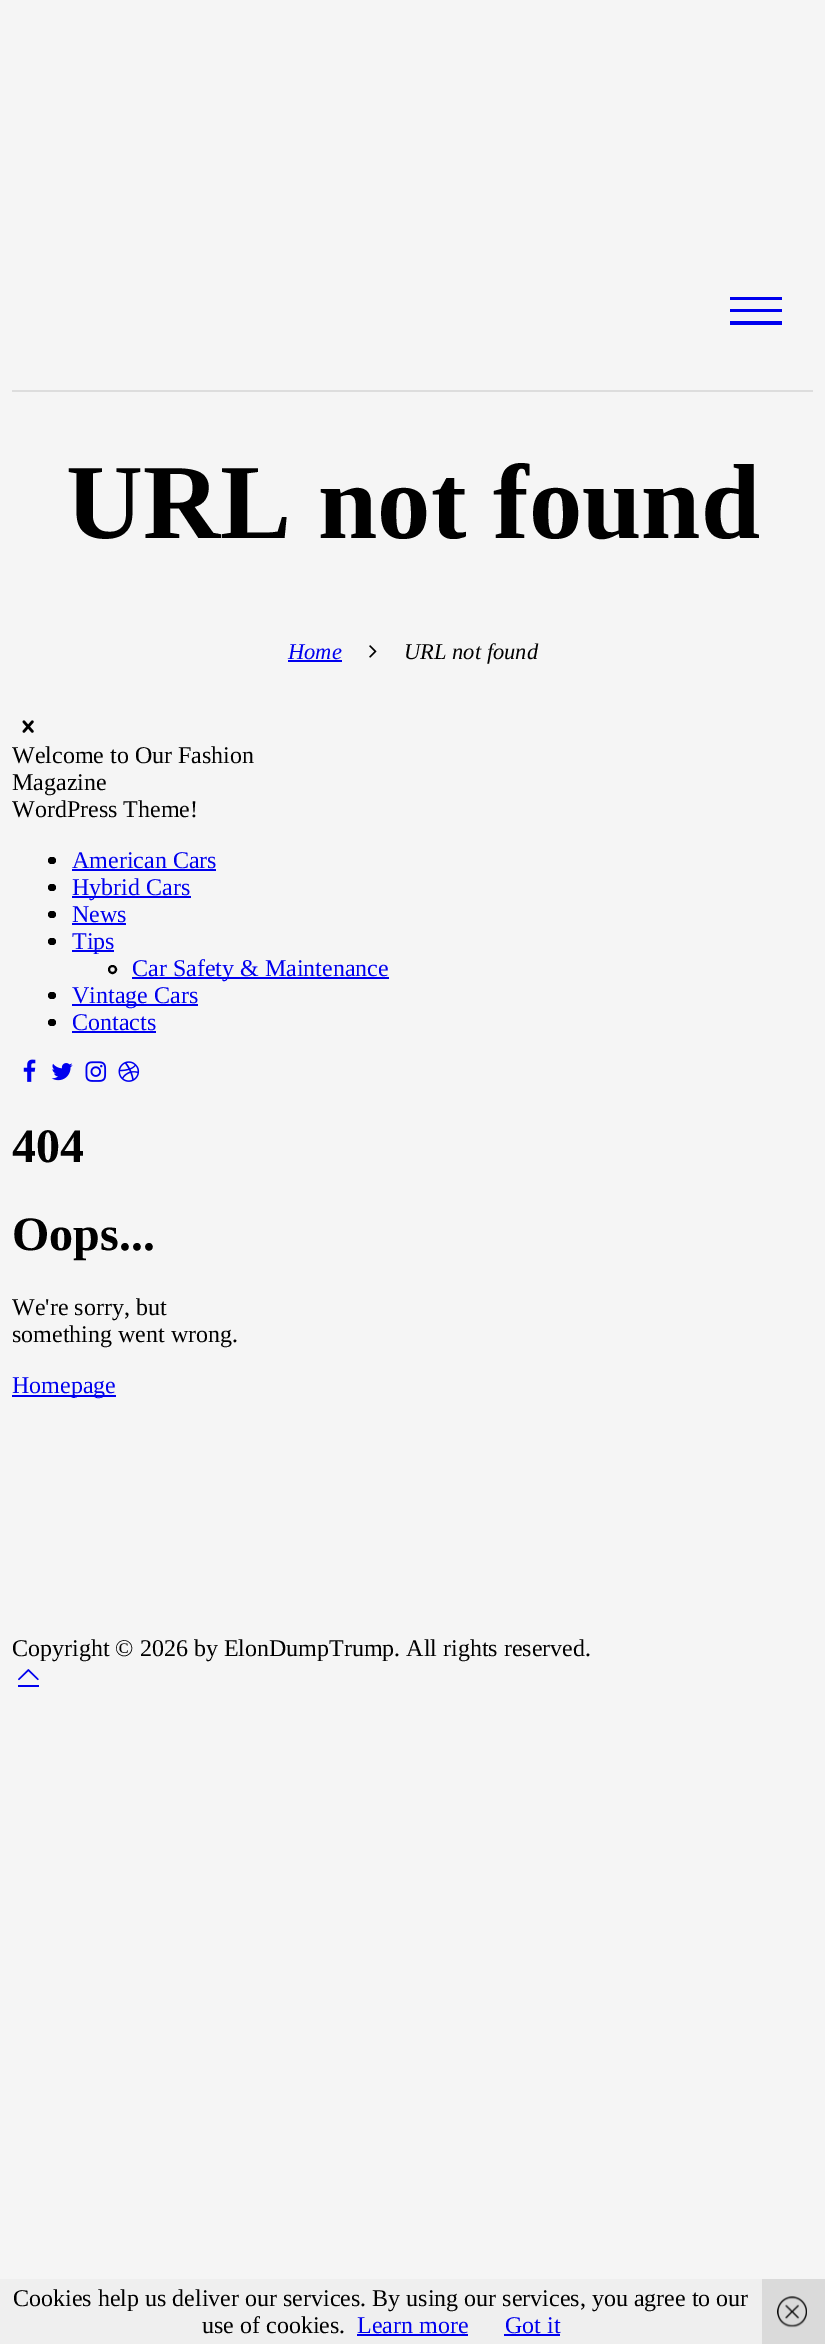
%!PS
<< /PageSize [825 2344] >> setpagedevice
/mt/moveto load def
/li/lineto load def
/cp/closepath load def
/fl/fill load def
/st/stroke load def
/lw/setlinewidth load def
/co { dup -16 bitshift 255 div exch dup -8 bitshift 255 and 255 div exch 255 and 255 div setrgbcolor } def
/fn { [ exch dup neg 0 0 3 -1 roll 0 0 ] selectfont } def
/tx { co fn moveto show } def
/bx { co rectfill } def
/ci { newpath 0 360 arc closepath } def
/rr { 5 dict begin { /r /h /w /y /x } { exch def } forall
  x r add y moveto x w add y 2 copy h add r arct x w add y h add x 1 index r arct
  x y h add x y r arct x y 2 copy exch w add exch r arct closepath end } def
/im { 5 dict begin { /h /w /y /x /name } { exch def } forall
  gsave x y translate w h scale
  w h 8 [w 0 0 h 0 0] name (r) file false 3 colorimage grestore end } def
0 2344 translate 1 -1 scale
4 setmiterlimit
0 0 825 2344 16#F5F5F5 bx
12 390 801 2 16#DDDDDD bx
16#0000EE co
782 297 mt 782 300 li 730 300 li 730 297 li cp 730 312 mt 782 312 li 782 309 li 730 309 li cp 730 325 mt 782 325 li 782 321 li 730 321 li cp fl
288 660 54 2 16#0000EE bx
(media/1.raw) 369 645 8 13 im
(media/2.raw) 22 720 12 13 im
16#000000 co
48 857 8 7 3.5 rr fl
72 869 144 2 16#0000EE bx
16#000000 co
48 884 8 7 3.5 rr fl
72 896 119 2 16#0000EE bx
16#000000 co
48 911 8 7 3.5 rr fl
72 923 54 2 16#0000EE bx
16#000000 co
48 938 8 7 3.5 rr fl
72 950 42 2 16#0000EE bx
16#000000 co
2 lw
112.5 969.5 3.5 ci st
132 977 257 2 16#0000EE bx
16#000000 co
48 992 8 7 3.5 rr fl
72 1004 126 2 16#0000EE bx
16#000000 co
48 1019 8 7 3.5 rr fl
72 1031 84 2 16#0000EE bx
(media/3.raw) 23 1059 13 23 im
(media/4.raw) 51 1063 22 18 im
(media/5.raw) 85 1061 22 21 im
(media/6.raw) 118 1061 22 21 im
12 1395 104 2 16#0000EE bx
18 1685 21 2 16#0000EE bx
(media/7.raw) 18 1669 21 12 im
0 2279 762 65 16#EFEFEF bx
357 2334 111 2 16#0000EE bx
504 2334 56 2 16#0000EE bx
762 2279 63 65 16#DADADA bx
(media/8.raw) 777 2296 30 32 im
(URL not found) 66 538 /LiberationSerif-Bold 106.75 16#000000 tx
(Home) 288 659 /LiberationSerif-Italic 22.5 16#0000EE tx
(URL not found) 404 659 /LiberationSerif-Italic 22.5 16#000000 tx
(Welcome to Our Fashion) 12 763 /LiberationSerif-Regular 24 16#000000 tx
(Magazine) 12 790 /LiberationSerif-Regular 24 16#000000 tx
(WordPress Theme!) 12 817 /LiberationSerif-Regular 24 16#000000 tx
(American Cars) 72 868 /LiberationSerif-Regular 24 16#0000EE tx
(Hybrid Cars) 72 895 /LiberationSerif-Regular 24 16#0000EE tx
(News) 72 922 /LiberationSerif-Regular 24 16#0000EE tx
(Tips) 72 949 /LiberationSerif-Regular 24 16#0000EE tx
(Car Safety & Maintenance) 132 976 /LiberationSerif-Regular 24 16#0000EE tx
(Vintage Cars) 72 1003 /LiberationSerif-Regular 24 16#0000EE tx
(Contacts) 72 1030 /LiberationSerif-Regular 24 16#0000EE tx
(404) 12 1162 /LiberationSerif-Bold 48 16#000000 tx
(Oops...) 12 1250 /LiberationSerif-Bold 48 16#000000 tx
(We're sorry, but) 12 1315 /LiberationSerif-Regular 24 16#000000 tx
(something went wrong.) 12 1342 /LiberationSerif-Regular 24 16#000000 tx
(Homepage) 12 1393 /LiberationSerif-Regular 24 16#0000EE tx
(Copyright © 2026 by ElonDumpTrump. All rights reserved.) 12 1656 /LiberationSerif-Regular 24 16#000000 tx
(Cookies help us deliver our services. By using our services, you agree to our) 13 2306 /LiberationSerif-Regular 24 16#000000 tx
(use of cookies.) 202 2333 /LiberationSerif-Regular 24 16#000000 tx
(Learn more) 357 2333 /LiberationSerif-Regular 24 16#0000EE tx
(Got it) 505 2333 /LiberationSerif-Regular 24 16#0000EE tx
showpage
